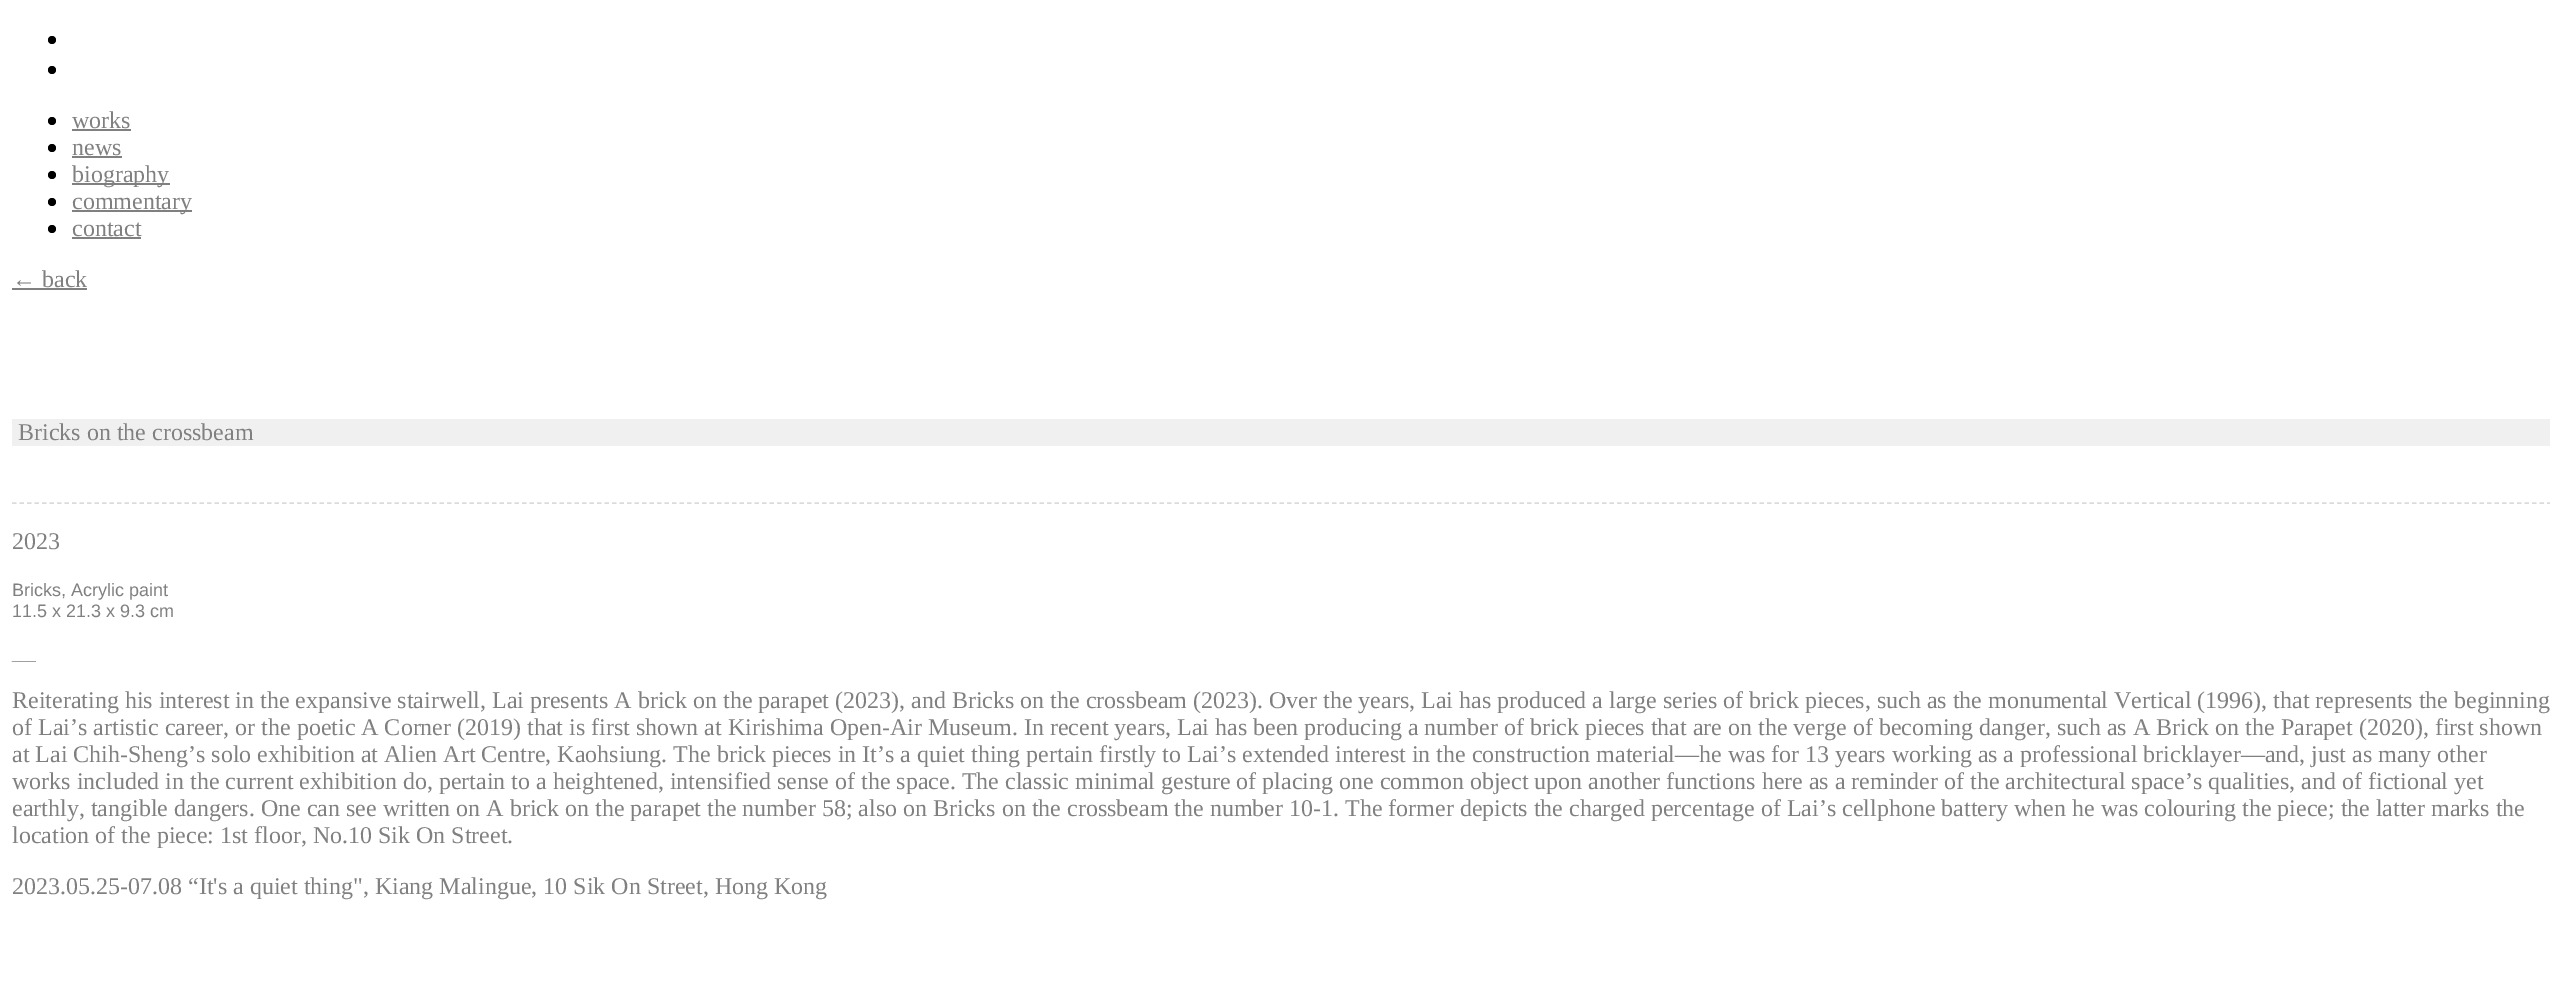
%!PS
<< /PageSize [2562 1001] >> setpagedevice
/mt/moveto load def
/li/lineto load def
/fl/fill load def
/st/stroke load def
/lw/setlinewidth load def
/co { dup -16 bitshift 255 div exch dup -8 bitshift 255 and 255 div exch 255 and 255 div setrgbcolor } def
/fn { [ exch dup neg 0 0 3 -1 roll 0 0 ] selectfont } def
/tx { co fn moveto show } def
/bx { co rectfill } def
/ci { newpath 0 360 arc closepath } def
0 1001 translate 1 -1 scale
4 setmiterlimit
0 0 2562 1001 16#FFFFFF bx
16#000000 co
52 40 4 ci fl
52 70 4 ci fl
52 121 4 ci fl
72 129 59 2 16#808080 bx
16#000000 co
52 148 4 ci fl
72 156 50 2 16#808080 bx
16#000000 co
52 175 4 ci fl
72 183 98 2 16#808080 bx
16#000000 co
52 202 4 ci fl
72 210 120 2 16#808080 bx
16#000000 co
52 229 4 ci fl
72 237 69 2 16#808080 bx
12 288 75 2 16#808080 bx
12 419 2538 27 16#F0F0F0 bx
16#DBDBDB co
1.5 lw
[4.5 3] 0 setdash
12 503 mt 2550 503 li st
(works) 72 128 /LiberationSerif-Regular 24 16#808080 tx
(news) 72 155 /LiberationSerif-Regular 24 16#808080 tx
(biography) 72 182 /LiberationSerif-Regular 24 16#808080 tx
(commentary) 72 209 /LiberationSerif-Regular 24 16#808080 tx
(contact) 72 236 /LiberationSerif-Regular 24 16#808080 tx
(← back) 12 287 /LiberationSerif-Regular 24 16#808080 tx
(Bricks on the crossbeam) 18 440 /LiberationSerif-Regular 24 16#808080 tx
(2023) 12 549 /LiberationSerif-Regular 24 16#808080 tx
(Bricks, Acrylic paint) 12 596 /LiberationSans-Regular 18 16#808080 tx
(11.5 x 21.3 x 9.3 cm) 12 617 /LiberationSans-Regular 18 16#808080 tx
(___) 12 660 /LiberationSerif-Regular 16 16#808080 tx
(Reiterating his interest in the expansive stairwell, Lai presents A brick on the parapet \(2023\), and Bricks on the crossbeam \(2023\). Over the years, Lai has produced a large series of brick pieces, such as the monumental Vertical \(1996\), that represents the beginning) 12 708 /LiberationSerif-Regular 24 16#808080 tx
(of Lai’s artistic career, or the poetic A Corner \(2019\) that is first shown at Kirishima Open-Air Museum. In recent years, Lai has been producing a number of brick pieces that are on the verge of becoming danger, such as A Brick on the Parapet \(2020\), first shown) 12 735 /LiberationSerif-Regular 24 16#808080 tx
(at Lai Chih-Sheng’s solo exhibition at Alien Art Centre, Kaohsiung. The brick pieces in It’s a quiet thing pertain firstly to Lai’s extended interest in the construction material—he was for 13 years working as a professional bricklayer—and, just as many other) 12 762 /LiberationSerif-Regular 24 16#808080 tx
(works included in the current exhibition do, pertain to a heightened, intensified sense of the space. The classic minimal gesture of placing one common object upon another functions here as a reminder of the architectural space’s qualities, and of fictional yet) 12 789 /LiberationSerif-Regular 24 16#808080 tx
(earthly, tangible dangers. One can see written on A brick on the parapet the number 58; also on Bricks on the crossbeam the number 10-1. The former depicts the charged percentage of Lai’s cellphone battery when he was colouring the piece; the latter marks the) 12 816 /LiberationSerif-Regular 24 16#808080 tx
(location of the piece: 1st floor, No.10 Sik On Street.) 12 843 /LiberationSerif-Regular 24 16#808080 tx
(2023.05.25-07.08 “It's a quiet thing", Kiang Malingue, 10 Sik On Street, Hong Kong) 12 894 /LiberationSerif-Regular 24 16#808080 tx
showpage
